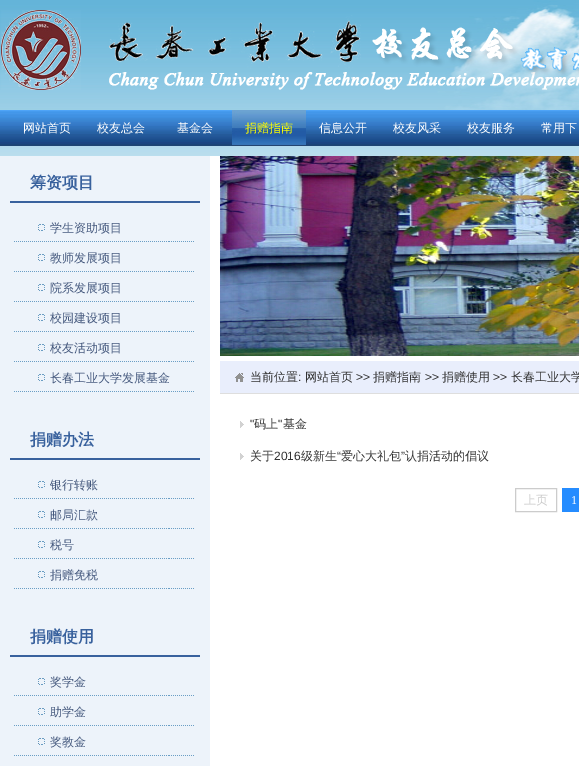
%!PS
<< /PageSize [579 766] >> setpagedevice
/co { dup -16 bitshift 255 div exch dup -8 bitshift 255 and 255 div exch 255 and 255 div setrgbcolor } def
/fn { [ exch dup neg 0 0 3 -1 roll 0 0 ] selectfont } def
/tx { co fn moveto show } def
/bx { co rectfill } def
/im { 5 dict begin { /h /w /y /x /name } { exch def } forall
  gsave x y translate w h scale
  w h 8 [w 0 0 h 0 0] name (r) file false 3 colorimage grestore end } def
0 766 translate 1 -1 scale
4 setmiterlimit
0 0 579 766 16#FFFFFF bx
(media/1.raw) 0 0 579 156 im
(media/2.raw) 1 10 578 80 im
(media/3.raw) 0 110 579 36 im
(media/4.raw) 232 110 74 36 im
0 156 210 610 16#EDF3FA bx
10 201 190 2 16#38619D bx
(media/5.raw) 14 224 180 18 im
(media/5.raw) 14 254 180 18 im
(media/5.raw) 14 284 180 18 im
(media/5.raw) 14 314 180 18 im
(media/5.raw) 14 344 180 18 im
(media/5.raw) 14 374 180 18 im
10 458 190 2 16#38619D bx
(media/5.raw) 14 481 180 18 im
(media/5.raw) 14 511 180 18 im
(media/5.raw) 14 541 180 18 im
(media/5.raw) 14 571 180 18 im
10 655 190 2 16#38619D bx
(media/5.raw) 14 678 180 18 im
(media/5.raw) 14 708 180 18 im
(media/5.raw) 14 738 180 18 im
(media/6.raw) 220 156 359 200 im
220 361 359 32 16#E9EEFC bx
220 393 359 1 16#DEDEDE bx
(media/7.raw) 235 373 9 9 im
(media/8.raw) 240 421 4 7 im
(media/8.raw) 240 453 4 7 im
16#CCCCCC co
515.5 488.5 41 23 rectstroke
562 488 17 24 16#258CFF bx
(网站首页) 23 132 /WenQuanYiZenHei-Medium 12 16#FFFFFF tx
(校友总会) 97 132 /WenQuanYiZenHei-Medium 12 16#FFFFFF tx
(基金会) 177 132 /WenQuanYiZenHei-Medium 12 16#FFFFFF tx
(捐赠指南) 245 132 /WenQuanYiZenHei-Medium 12 16#FFFF00 tx
(信息公开) 319 132 /WenQuanYiZenHei-Medium 12 16#FFFFFF tx
(校友风采) 393 132 /WenQuanYiZenHei-Medium 12 16#FFFFFF tx
(校友服务) 467 132 /WenQuanYiZenHei-Medium 12 16#FFFFFF tx
(常用下) 541 132 /WenQuanYiZenHei-Medium 12 16#FFFFFF tx
(筹资项目) 30 188 /WenQuanYiZenHei-Bold 16 16#38619D tx
(学生资助项目) 50 232 /WenQuanYiZenHei-Medium 12 16#45597E tx
(教师发展项目) 50 262 /WenQuanYiZenHei-Medium 12 16#45597E tx
(院系发展项目) 50 292 /WenQuanYiZenHei-Medium 12 16#45597E tx
(校园建设项目) 50 322 /WenQuanYiZenHei-Medium 12 16#45597E tx
(校友活动项目) 50 352 /WenQuanYiZenHei-Medium 12 16#45597E tx
(长春工业大学发展基金) 50 382 /WenQuanYiZenHei-Medium 12 16#45597E tx
(捐赠办法) 30 445 /WenQuanYiZenHei-Bold 16 16#38619D tx
(银行转账) 50 489 /WenQuanYiZenHei-Medium 12 16#45597E tx
(邮局汇款) 50 519 /WenQuanYiZenHei-Medium 12 16#45597E tx
(税号) 50 549 /WenQuanYiZenHei-Medium 12 16#45597E tx
(捐赠免税) 50 579 /WenQuanYiZenHei-Medium 12 16#45597E tx
(捐赠使用) 30 642 /WenQuanYiZenHei-Bold 16 16#38619D tx
(奖学金) 50 686 /WenQuanYiZenHei-Medium 12 16#45597E tx
(助学金) 50 716 /WenQuanYiZenHei-Medium 12 16#45597E tx
(奖教金) 50 746 /WenQuanYiZenHei-Medium 12 16#45597E tx
(当前位置) 250 381 /WenQuanYiZenHei-Medium 12 16#333333 tx
(:) 298 381 /LiberationSans-Regular 12 16#333333 tx
(网站首页) 305 381 /WenQuanYiZenHei-Medium 12 16#333333 tx
(>>) 356 381 /LiberationSans-Regular 12 16#333333 tx
(捐赠指南) 373 381 /WenQuanYiZenHei-Medium 12 16#333333 tx
(>>) 425 381 /LiberationSans-Regular 12 16#333333 tx
(捐赠使用) 442 381 /WenQuanYiZenHei-Medium 12 16#333333 tx
(>>) 493 381 /LiberationSans-Regular 12 16#333333 tx
(长春工业大学) 511 381 /WenQuanYiZenHei-Medium 12 16#333333 tx
(") 250 428 /LiberationSans-Regular 12 16#333333 tx
(码上) 254 428 /WenQuanYiZenHei-Medium 12 16#333333 tx
(") 278 428 /LiberationSans-Regular 12 16#333333 tx
(基金) 283 428 /WenQuanYiZenHei-Medium 12 16#333333 tx
(关于) 250 460 /WenQuanYiZenHei-Medium 12 16#333333 tx
(2016) 274 460 /LiberationSans-Regular 12 16#333333 tx
(级新生) 301 460 /WenQuanYiZenHei-Medium 12 16#333333 tx
(“) 337 460 /LiberationSans-Regular 12 16#333333 tx
(爱心大礼包) 341 460 /WenQuanYiZenHei-Medium 12 16#333333 tx
(”) 401 460 /LiberationSans-Regular 12 16#333333 tx
(认捐活动的倡议) 405 460 /WenQuanYiZenHei-Medium 12 16#333333 tx
(上页) 524 504 /WenQuanYiZenHei-Medium 12 16#CCCCCC tx
(1) 571 504 /LiberationSerif-Regular 12 16#FFFFFF tx
showpage
